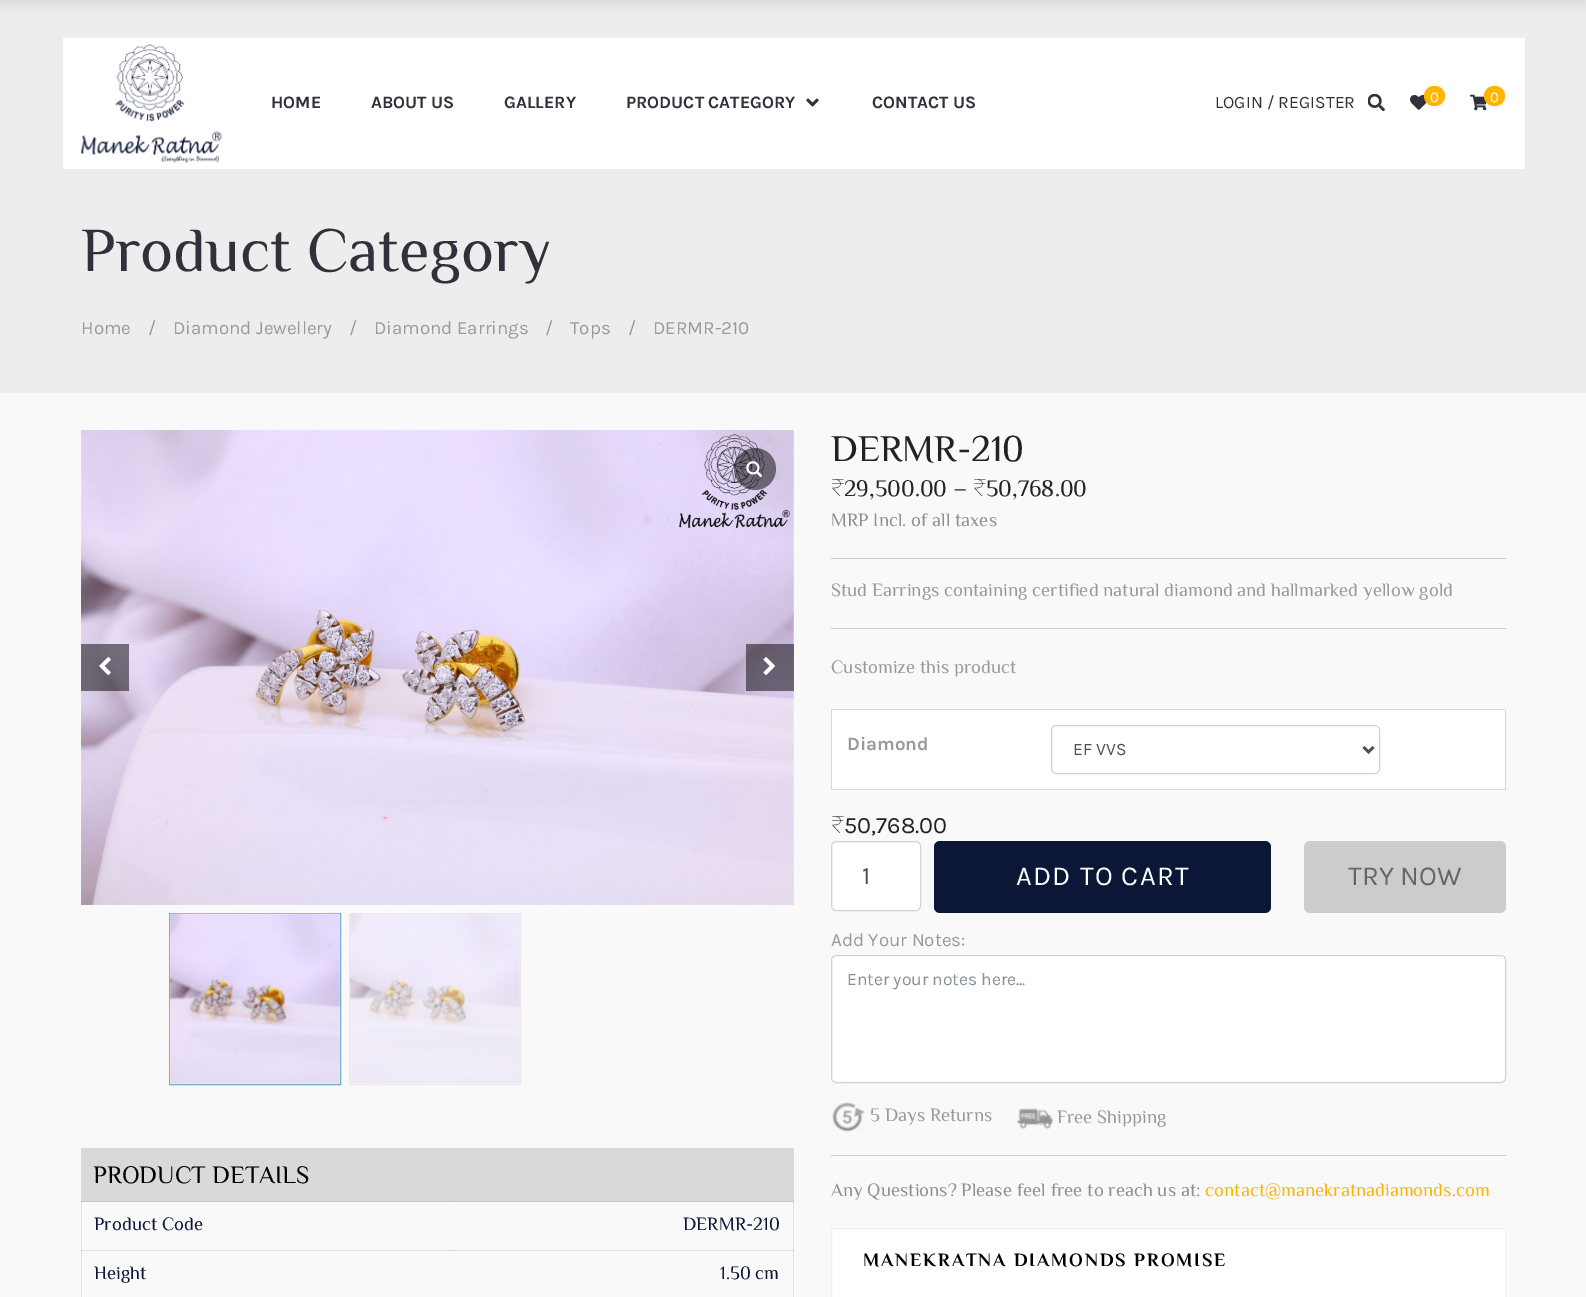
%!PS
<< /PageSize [1586 1297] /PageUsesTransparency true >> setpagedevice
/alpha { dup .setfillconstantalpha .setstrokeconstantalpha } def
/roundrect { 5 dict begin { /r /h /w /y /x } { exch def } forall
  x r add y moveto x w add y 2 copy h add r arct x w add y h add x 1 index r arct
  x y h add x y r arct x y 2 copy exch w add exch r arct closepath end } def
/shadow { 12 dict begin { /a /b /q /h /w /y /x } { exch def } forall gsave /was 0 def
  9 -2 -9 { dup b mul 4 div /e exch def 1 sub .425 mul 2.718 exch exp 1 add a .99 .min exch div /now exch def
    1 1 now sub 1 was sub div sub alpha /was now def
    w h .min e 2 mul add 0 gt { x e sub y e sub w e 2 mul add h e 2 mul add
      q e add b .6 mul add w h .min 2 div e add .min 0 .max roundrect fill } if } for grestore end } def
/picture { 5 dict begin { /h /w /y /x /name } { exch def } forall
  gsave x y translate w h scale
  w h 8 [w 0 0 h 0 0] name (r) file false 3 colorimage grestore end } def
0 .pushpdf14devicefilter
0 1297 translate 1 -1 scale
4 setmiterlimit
0.976 setgray
0 0 1586 1297 rectfill
0.878 setgray
81 1250 713 1 rectfill
0.792 setgray
454 1250 1 1 rectfill
0.878 setgray
81 1201 1 96 rectfill
0.792 setgray
81 1250 1 1 rectfill
0.878 setgray
793 1201 1 96 rectfill
0.792 setgray
793 1250 1 1 rectfill
0.929 setgray
0 0 1586 393 rectfill
0 setgray
0 -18 1586 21 0 6 0.1 shadow
1 setgray
63 38 1462 131 rectfill
(img1.rgb) 81 43 141 120 picture
/Karla-Bold [17.5 0 0 -17.5 0 0] selectfont
0.192 0.192 0.231 setrgbcolor
271 108 moveto (HOME) show
371 108 moveto (ABOUT US) show
504 108 moveto (GALLERY) show
626 108 moveto (PRODUCT CATEGORY) show
(img2.rgb) 806 98 13 9 picture
872 108 moveto (CONTACT US) show
/Karla-Regular [17.5 0 0 -17.5 0 0] selectfont
1215 108 moveto (LOGIN / REGISTER) show
(img3.rgb) 1368 94 17 17 picture
(img4.rgb) 1410 95 17 15 picture
1 0.706 0.004 setrgbcolor
1424 86 21 20 10 roundrect fill
/Karla-Regular [15 0 0 -15 0 0] selectfont
1 setgray
1430 102 moveto (0) show
(img5.rgb) 1470 94 17 17 picture
1 0.706 0.004 setrgbcolor
1484 86 21 20 10 roundrect fill
1 setgray
1490 102 moveto (0) show
/ElMessiri-Regular [62.5 0 0 -62.5 0 0] selectfont
0.192 0.192 0.231 setrgbcolor
81 271 moveto (Product Category) show
/Karla-Regular [18.75 0 0 -18.75 0 0] selectfont
0.6 setgray
81 334 moveto (Home) show
148 334 moveto (/) show
173 334 moveto (Diamond Jewellery) show
349 334 moveto (/) show
374 334 moveto (Diamond Earrings) show
545 334 moveto (/) show
570 334 moveto (Tops) show
628 334 moveto (/) show
653 334 moveto (DERMR-210) show
(img6.rgb) 81 430 713 475 picture
0.5 alpha
0 setgray
newpath 755 469 21 0 360 arc closepath fill
1 alpha
(img7.rgb) 746 461 17 17 picture
0.5 alpha
81 644 48 47 rectfill
1 alpha
(img8.rgb) 99 657 12 18 picture
0.5 alpha
746 644 48 47 rectfill
1 alpha
(img9.rgb) 763 657 12 18 picture
0.369 0.671 0.757 setrgbcolor
169.5 913.5 171 171 rectstroke
(img10.rgb) 169 913 172 172 picture
0.922 setgray
349.5 913.5 171 171 rectstroke
(img11.rgb) 349 913 172 171 picture
/ElMessiri-Regular [37.5 0 0 -37.5 0 0] selectfont
0.133 setgray
831 461 moveto (DERMR-210) show
/NotoSans-Thin [23.5 0 0 -23.5 0 0] selectfont
0.157 0.133 0.133 setrgbcolor
831 496 moveto (₹) show
/ElMessiri-Regular [23.5 0 0 -23.5 0 0] selectfont
844 496 moveto (29,500.00 –) show
/NotoSans-Thin [23.5 0 0 -23.5 0 0] selectfont
973 496 moveto (₹) show
/ElMessiri-Regular [23.5 0 0 -23.5 0 0] selectfont
986 496 moveto (50,768.00) show
/ElMessiri-Regular [18.75 0 0 -18.75 0 0] selectfont
0.553 0.561 0.569 setrgbcolor
831 526 moveto (MRP Incl. of all taxes) show
0.8 setgray
831 558 675 1 rectfill
831 628 675 1 rectfill
0.6 setgray
831 596 moveto (Stud Earrings containing certified natural diamond and hallmarked yellow gold) show
831 673 moveto (Customize this product) show
1 setgray
832 710 673 79 rectfill
0.851 setgray
831 709 675 1 rectfill
1505 709 1 81 rectfill
831 789 675 1 rectfill
831 709 1 81 rectfill
/Karla-Bold [18.75 0 0 -18.75 0 0] selectfont
0.6 setgray
847 750 moveto (Diamond) show
0.808 0.831 0.855 setrgbcolor
1051.5 725.5 328 48 4.5 roundrect stroke
0.286 0.314 0.341 setrgbcolor
2.5 setlinewidth
newpath 1363.5 747 moveto 1368.5 752 lineto 1373.5 747 lineto stroke
/Karla-Regular [17.5 0 0 -17.5 0 0] selectfont
1073 755 moveto (EF VVS) show
/NotoSans-Thin [23.5 0 0 -23.5 0 0] selectfont
0.157 0.133 0.133 setrgbcolor
831 833 moveto (₹) show
/Karla-Regular [23.5 0 0 -23.5 0 0] selectfont
844 833 moveto (50,768.00) show
1 setgray
833 843 87 67 4 roundrect fill
0.808 0.831 0.855 setrgbcolor
1 setlinewidth
831.5 841.5 89 69 4.5 roundrect stroke
/Karla-Regular [25 0 0 -25 0 0] selectfont
0.286 0.314 0.341 setrgbcolor
862 884 moveto (1) show
0.047 0.086 0.212 setrgbcolor
934 841 337 72 6 roundrect fill
/Karla-Regular [27.5 0 0 -27.5 0 0] selectfont
1 setgray
1016 885 moveto 1.25 0 (ADD TO CART) ashow
0.8 setgray
1304 841 202 72 6 roundrect fill
0.4 setgray
1348 885 moveto (TRY NOW) show
/Karla-Regular [18.75 0 0 -18.75 0 0] selectfont
0.6 setgray
831 946 moveto (Add Your Notes:) show
1 setgray
833 956 672 125 4 roundrect fill
0.808 0.831 0.855 setrgbcolor
831.5 955.5 674 127 4.5 roundrect stroke
/Karla-Regular [17.5 0 0 -17.5 0 0] selectfont
0.525 0.557 0.588 setrgbcolor
847 985 moveto (Enter your notes here...) show
0.8 setgray
831 1155 675 1 rectfill
(img12.rgb) 832 1102 33 30 picture
/ElMessiri-Regular [18.75 0 0 -18.75 0 0] selectfont
0.6 setgray
870 1121 moveto (5 Days Returns) show
(img13.rgb) 1017 1108 36 21 picture
1057 1123 moveto (Free Shipping) show
0.553 0.561 0.569 setrgbcolor
831 1196 moveto (Any Questions? Please feel free to reach us at:) show
1 0.706 0.004 setrgbcolor
1205 1196 moveto (contact@manekratnadiamonds.com) show
1 setgray
newpath 831.5 1228.5 moveto 1505.5 1228.5 lineto 1505.5 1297.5 lineto 831.5 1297.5 lineto closepath gsave fill grestore
0.941 setgray
stroke
/ElMessiri-Bold [18.75 0 0 -18.75 0 0] selectfont
0 setgray
863 1266 moveto 1.9 0 (MANEKRATNA DIAMONDS PROMISE) ashow
0.851 setgray
81 1148 713 53 rectfill
/ElMessiri-Regular [25 0 0 -25 0 0] selectfont
0 setgray
93 1183 moveto (PRODUCT DETAILS) show
0.792 setgray
81 1201 713 1 rectfill
0.714 setgray
454 1201 1 1 rectfill
81 1201 1 1 rectfill
793 1201 1 1 rectfill
/ElMessiri-Regular [18.75 0 0 -18.75 0 0] selectfont
0.047 0.086 0.212 setrgbcolor
94 1230 moveto (Product Code) show
683 1230 moveto (DERMR-210) show
94 1279 moveto (Height) show
720 1279 moveto (1.50 cm) show
.poppdf14devicefilter showpage
